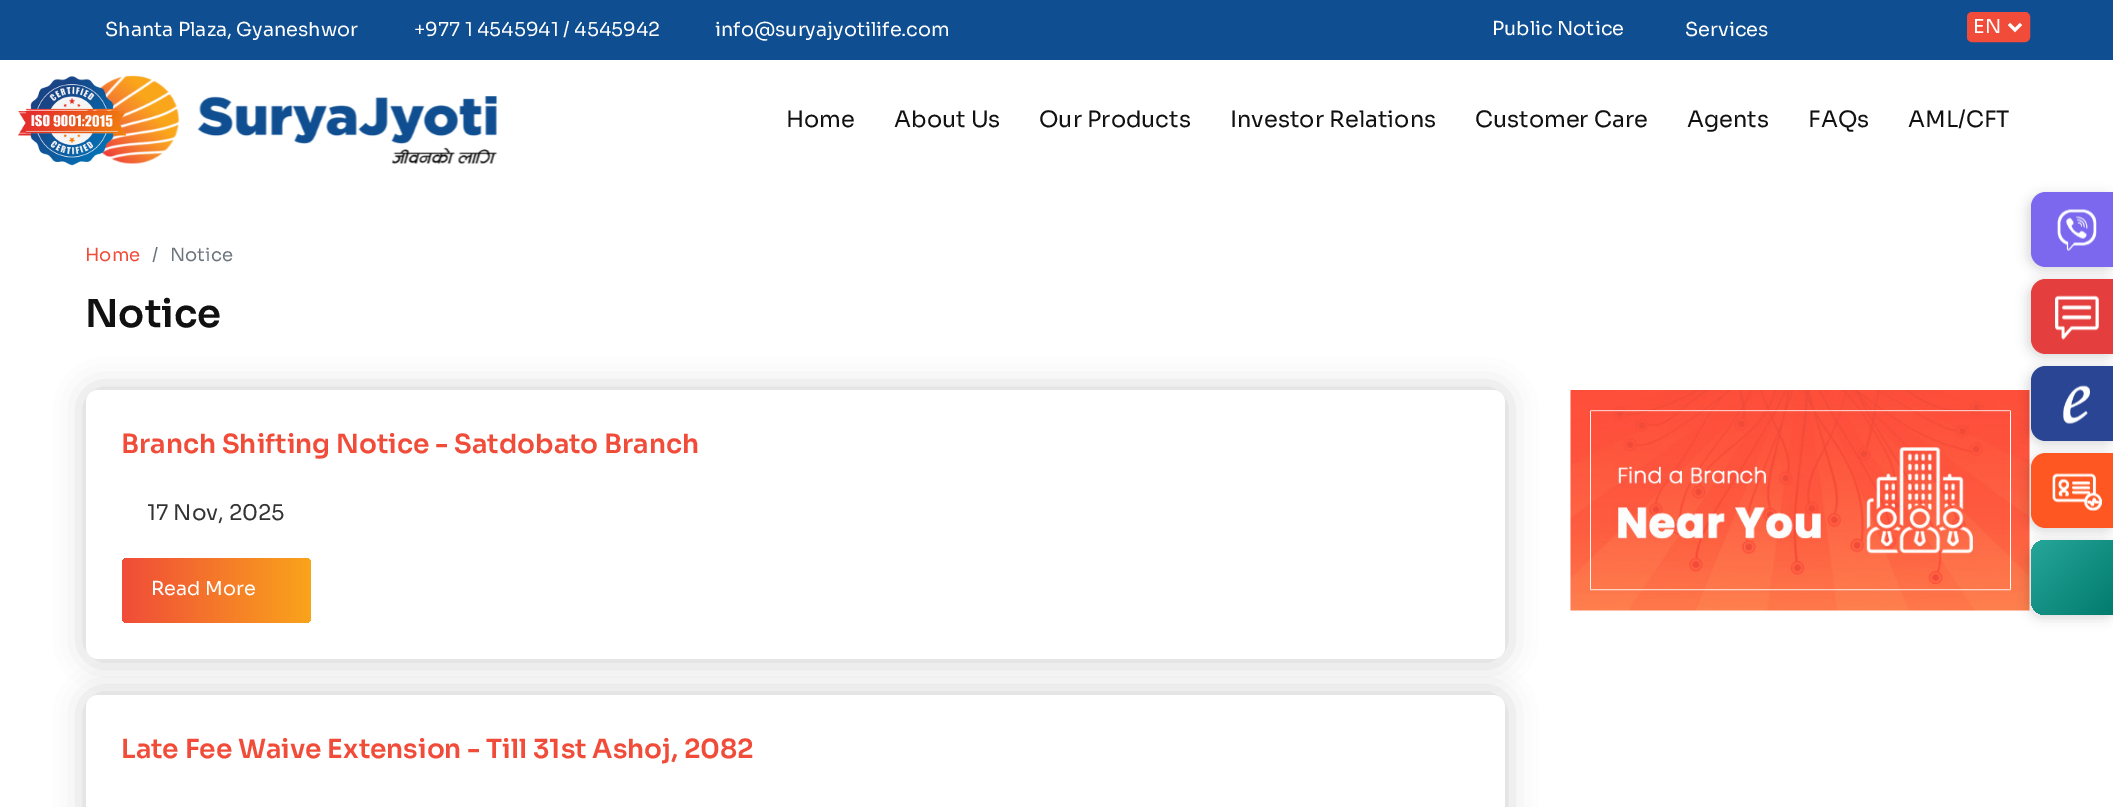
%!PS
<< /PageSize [2113 807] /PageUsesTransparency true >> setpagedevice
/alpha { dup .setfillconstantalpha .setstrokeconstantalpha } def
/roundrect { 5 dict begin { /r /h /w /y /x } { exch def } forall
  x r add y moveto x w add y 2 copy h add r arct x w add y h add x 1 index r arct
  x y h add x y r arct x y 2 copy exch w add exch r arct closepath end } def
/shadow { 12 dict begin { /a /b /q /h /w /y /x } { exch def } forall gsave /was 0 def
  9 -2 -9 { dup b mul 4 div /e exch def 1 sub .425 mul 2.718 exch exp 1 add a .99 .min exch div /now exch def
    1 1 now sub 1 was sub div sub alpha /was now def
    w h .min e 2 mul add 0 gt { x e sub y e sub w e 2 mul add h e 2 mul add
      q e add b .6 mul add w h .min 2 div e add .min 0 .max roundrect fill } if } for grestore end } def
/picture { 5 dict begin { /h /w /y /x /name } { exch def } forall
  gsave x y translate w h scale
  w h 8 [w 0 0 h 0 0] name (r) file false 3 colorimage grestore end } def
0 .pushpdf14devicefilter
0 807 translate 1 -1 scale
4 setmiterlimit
1 setgray
0 0 2113 807 rectfill
0.055 0.306 0.569 setrgbcolor
0 0 2113 60 rectfill
/Sora-Regular [19.25 0 0 -19.25 0 0] selectfont
1 setgray
105 36 moveto (Shanta Plaza, Gyaneshwor) show
414 36 moveto (+977 1 4545941 / 4545942) show
715 36 moveto (info@suryajyotilife.com) show
1492 35 moveto (Public Notice) show
1685 36 moveto (Services) show
0.941 0.298 0.224 setrgbcolor
1968 13 61 28 4 roundrect gsave fill grestore
2 setlinewidth
stroke
1 setgray
3 setlinewidth
newpath 2009 24 moveto 2015 30 lineto 2021 24 lineto stroke
1973 33 moveto (EN) show
(img2.rgb) 86 75 412 89 picture
(img1.rgb) 18 76 109 90 picture
/Sora-Regular [22.5 0 0 -22.5 0 0] selectfont
0.067 setgray
786 127 moveto (Home) show
894 127 moveto (About Us) show
1039 127 moveto (Our Products) show
1230 127 moveto (Investor Relations) show
1475 127 moveto (Customer Care) show
1687 127 moveto (Agents) show
1808 127 moveto (FAQs) show
1908 127 moveto (AML/CFT) show
/Sora-Regular [18 0 0 -18 0 0] selectfont
0.941 0.298 0.224 setrgbcolor
85 261 moveto (Home) show
0.424 0.459 0.49 setrgbcolor
152 261 moveto (/) show
170 261 moveto (Notice) show
/Sora-SemiBold [38.5 0 0 -38.5 0 0] selectfont
0.067 setgray
85 327 moveto (Notice) show
0 setgray
2028 195 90 75 15 6 0.15 shadow
0.482 0.408 0.933 setrgbcolor
newpath 2046 192 moveto 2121 192 lineto 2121 267 lineto 2046 267 lineto 2037.5 267 2031 260.5 2031 252 curveto 2031 207 lineto 2031 198.5 2037.5 192 2046 192 curveto closepath fill
(img3.rgb) 2057 209 40 42 picture
0 setgray
2028 282 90 75 15 6 0.15 shadow
0.898 0.243 0.243 setrgbcolor
newpath 2046 279 moveto 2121 279 lineto 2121 354 lineto 2046 354 lineto 2037.5 354 2031 347.5 2031 339 curveto 2031 294 lineto 2031 285.5 2037.5 279 2046 279 curveto closepath fill
(img4.rgb) 2055 295 44 45 picture
(img7.rgb) 1570 390 460 221 picture
0 setgray
2028 369 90 75 15 6 0.15 shadow
0.161 0.271 0.576 setrgbcolor
newpath 2046 366 moveto 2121 366 lineto 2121 441 lineto 2046 441 lineto 2037.5 441 2031 434.5 2031 426 curveto 2031 381 lineto 2031 372.5 2037.5 366 2046 366 curveto closepath fill
(img5.rgb) 2063 385 27 39 picture
0 setgray
2028 456 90 75 15 6 0.15 shadow
1 0.341 0.133 setrgbcolor
newpath 2046 453 moveto 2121 453 lineto 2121 528 lineto 2046 528 lineto 2037.5 528 2031 521.5 2031 513 curveto 2031 468 lineto 2031 459.5 2037.5 453 2046 453 curveto closepath fill
(img6.rgb) 2052 473 50 38 picture
0 setgray
2028 543 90 75 15 6 0.15 shadow
gsave newpath 2046 540 moveto 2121 540 lineto 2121 615 lineto 2046 615 lineto 2037.5 615 2031 608.5 2031 600 curveto 2031 555 lineto 2031 546.5 2037.5 540 2046 540 curveto closepath clip newpath
<< /ShadingType 2 /ColorSpace /DeviceRGB /Coords [2035 536 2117 619] /Extend [true true] /Function << /FunctionType 2 /Domain [0 1] /C0 [0.149 0.651 0.604] /C1 [0 0.475 0.42] /N 1 >> >> shfill grestore
86 390 1419 269 12 15 0.2 shadow
1 setgray
86 390 1419 269 12 roundrect fill
/Sora-SemiBold [26.4 0 0 -26.4 0 0] selectfont
0.941 0.298 0.224 setrgbcolor
121 453 moveto (Branch Shifting Notice - Satdobato Branch) show
/Sora-Regular [21.5 0 0 -21.5 0 0] selectfont
0.2 setgray
147 520 moveto (17 Nov, 2025) show
gsave 122 558 189 65 6 roundrect clip newpath
<< /ShadingType 2 /ColorSpace /DeviceRGB /Coords [122 590 311 590] /Extend [true true] /Function << /FunctionType 2 /Domain [0 1] /C0 [0.941 0.298 0.224] /C1 [0.98 0.643 0.106] /N 1 >> >> shfill grestore
/Sora-Regular [19.25 0 0 -19.25 0 0] selectfont
1 setgray
151 595 moveto (Read More) show
0 setgray
86 695 1419 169 12 15 0.2 shadow
1 setgray
86 695 1419 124 12 roundrect fill
/Sora-SemiBold [26.4 0 0 -26.4 0 0] selectfont
0.941 0.298 0.224 setrgbcolor
121 758 moveto (Late Fee Waive Extension - Till 31st Ashoj, 2082) show
.poppdf14devicefilter showpage
